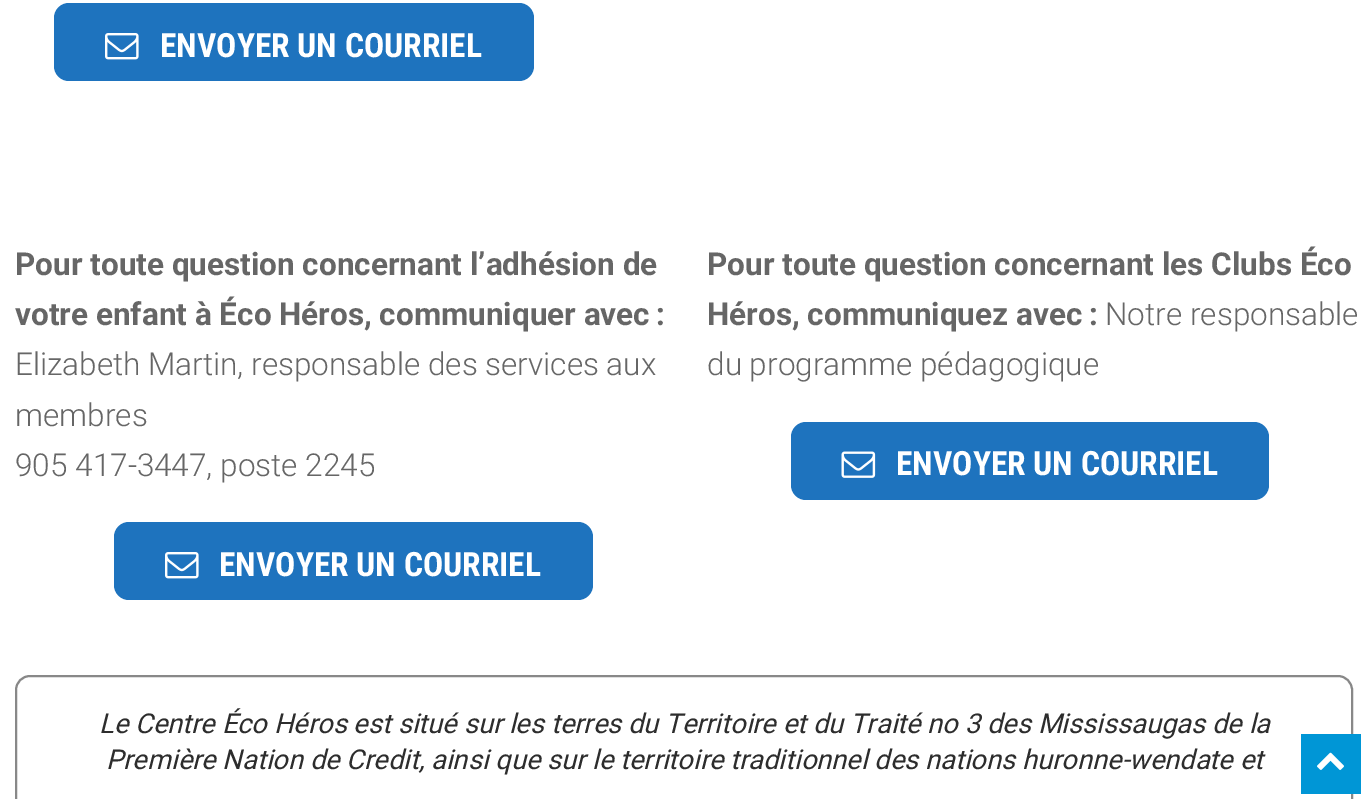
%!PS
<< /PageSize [1367 799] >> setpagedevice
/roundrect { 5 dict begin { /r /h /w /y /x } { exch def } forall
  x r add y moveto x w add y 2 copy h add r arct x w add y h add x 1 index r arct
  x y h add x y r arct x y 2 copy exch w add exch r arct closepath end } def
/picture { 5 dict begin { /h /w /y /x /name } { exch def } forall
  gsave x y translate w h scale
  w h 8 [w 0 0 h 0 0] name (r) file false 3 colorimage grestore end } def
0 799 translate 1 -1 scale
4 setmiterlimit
1 setgray
0 0 1367 799 rectfill
0.118 0.451 0.745 setrgbcolor
54 3 480 78 15 roundrect fill
(img1.rgb) 105 33 34 27 picture
/RobotoCondensed-Bold [33.5 0 0 -33.5 0 0] selectfont
1 setgray
160 57 moveto (ENVOYER UN COURRIEL) show
/Roboto-Bold [31.5 0 0 -31.5 0 0] selectfont
0.4 setgray
15 275 moveto (Pour toute question concernant l’adhésion de) show
15 325 moveto (votre enfant à Éco Héros, communiquer avec :) show
/Roboto-Light [31.5 0 0 -31.5 0 0] selectfont
15 375 moveto (Elizabeth Martin, responsable des services aux) show
15 426 moveto (membres) show
15 476 moveto (905 417-3447, poste 2245) show
0.118 0.451 0.745 setrgbcolor
114 522 479 78 15 roundrect fill
(img1.rgb) 165 552 34 27 picture
/RobotoCondensed-Bold [33.5 0 0 -33.5 0 0] selectfont
1 setgray
219 576 moveto (ENVOYER UN COURRIEL) show
/Roboto-Bold [31.5 0 0 -31.5 0 0] selectfont
0.4 setgray
707 275 moveto (Pour toute question concernant les Clubs Éco) show
707 325 moveto (Héros, communiquez avec :) show
/Roboto-Light [31.5 0 0 -31.5 0 0] selectfont
1105 325 moveto (Notre responsable) show
707 375 moveto (du programme pédagogique) show
0.118 0.451 0.745 setrgbcolor
791 422 478 78 15 roundrect fill
(img2.rgb) 841 451 35 27 picture
/RobotoCondensed-Bold [33.5 0 0 -33.5 0 0] selectfont
1 setgray
896 475 moveto (ENVOYER UN COURRIEL) show
0.533 setgray
2 setlinewidth
16 676 1336 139 14 roundrect stroke
/Roboto-Italic [27.3 0 0 -27.3 0 0] selectfont
0.176 setgray
99 733 moveto (Le Centre Éco Héros est situé sur les terres du Territoire et du Traité no 3 des Mississaugas de la) show
106 769 moveto (Première Nation de Credit, ainsi que sur le territoire traditionnel des nations huronne-wendate et) show
0 0.588 0.839 setrgbcolor
1301 734 60 60 rectfill
(img3.rgb) 1317 752 27 18 picture
showpage
